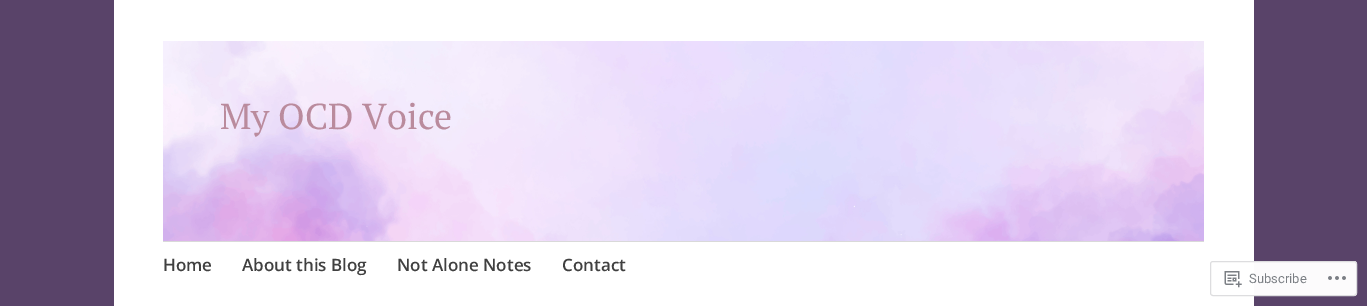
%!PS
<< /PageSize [1367 306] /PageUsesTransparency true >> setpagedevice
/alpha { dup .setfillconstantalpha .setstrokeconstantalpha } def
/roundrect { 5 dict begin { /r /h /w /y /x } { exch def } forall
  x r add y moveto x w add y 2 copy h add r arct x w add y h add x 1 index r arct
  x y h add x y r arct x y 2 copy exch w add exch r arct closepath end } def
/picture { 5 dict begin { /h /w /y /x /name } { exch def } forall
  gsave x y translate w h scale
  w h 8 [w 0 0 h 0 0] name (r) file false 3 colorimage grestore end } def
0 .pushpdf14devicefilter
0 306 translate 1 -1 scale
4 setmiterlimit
0.349 0.263 0.412 setrgbcolor
0 0 1367 306 rectfill
1 setgray
114 0 1140 306 rectfill
(img1.rgb) 163 41 1041 200 picture
/PTSerif-Regular [36 0 0 -36 0 0] selectfont
0.729 0.545 0.616 setrgbcolor
220 129 moveto (My OCD Voice) show
0.851 setgray
163 241 1041 1 rectfill
/OpenSans-SemiBold [17 0 0 -17 0 0] selectfont
0.251 setgray
163 271 moveto (Home) show
242 271 moveto (About this Blog) show
397 271 moveto (Not Alone Notes) show
562 271 moveto (Contact) show
0.98 alpha
1 setgray
1210 261 147 35 3 roundrect fill
0.863 0.863 0.871 setrgbcolor
1210.5 261.5 146 34 2.5 roundrect stroke
1 alpha
(img2.rgb) 1224 271 18 17 picture
/Roboto-Regular [13 0 0 -13 0 0] selectfont
0.482 0.498 0.518 setrgbcolor
1249 283 moveto (Subscribe) show
(img3.rgb) 1328 276 18 4 picture
.poppdf14devicefilter showpage
